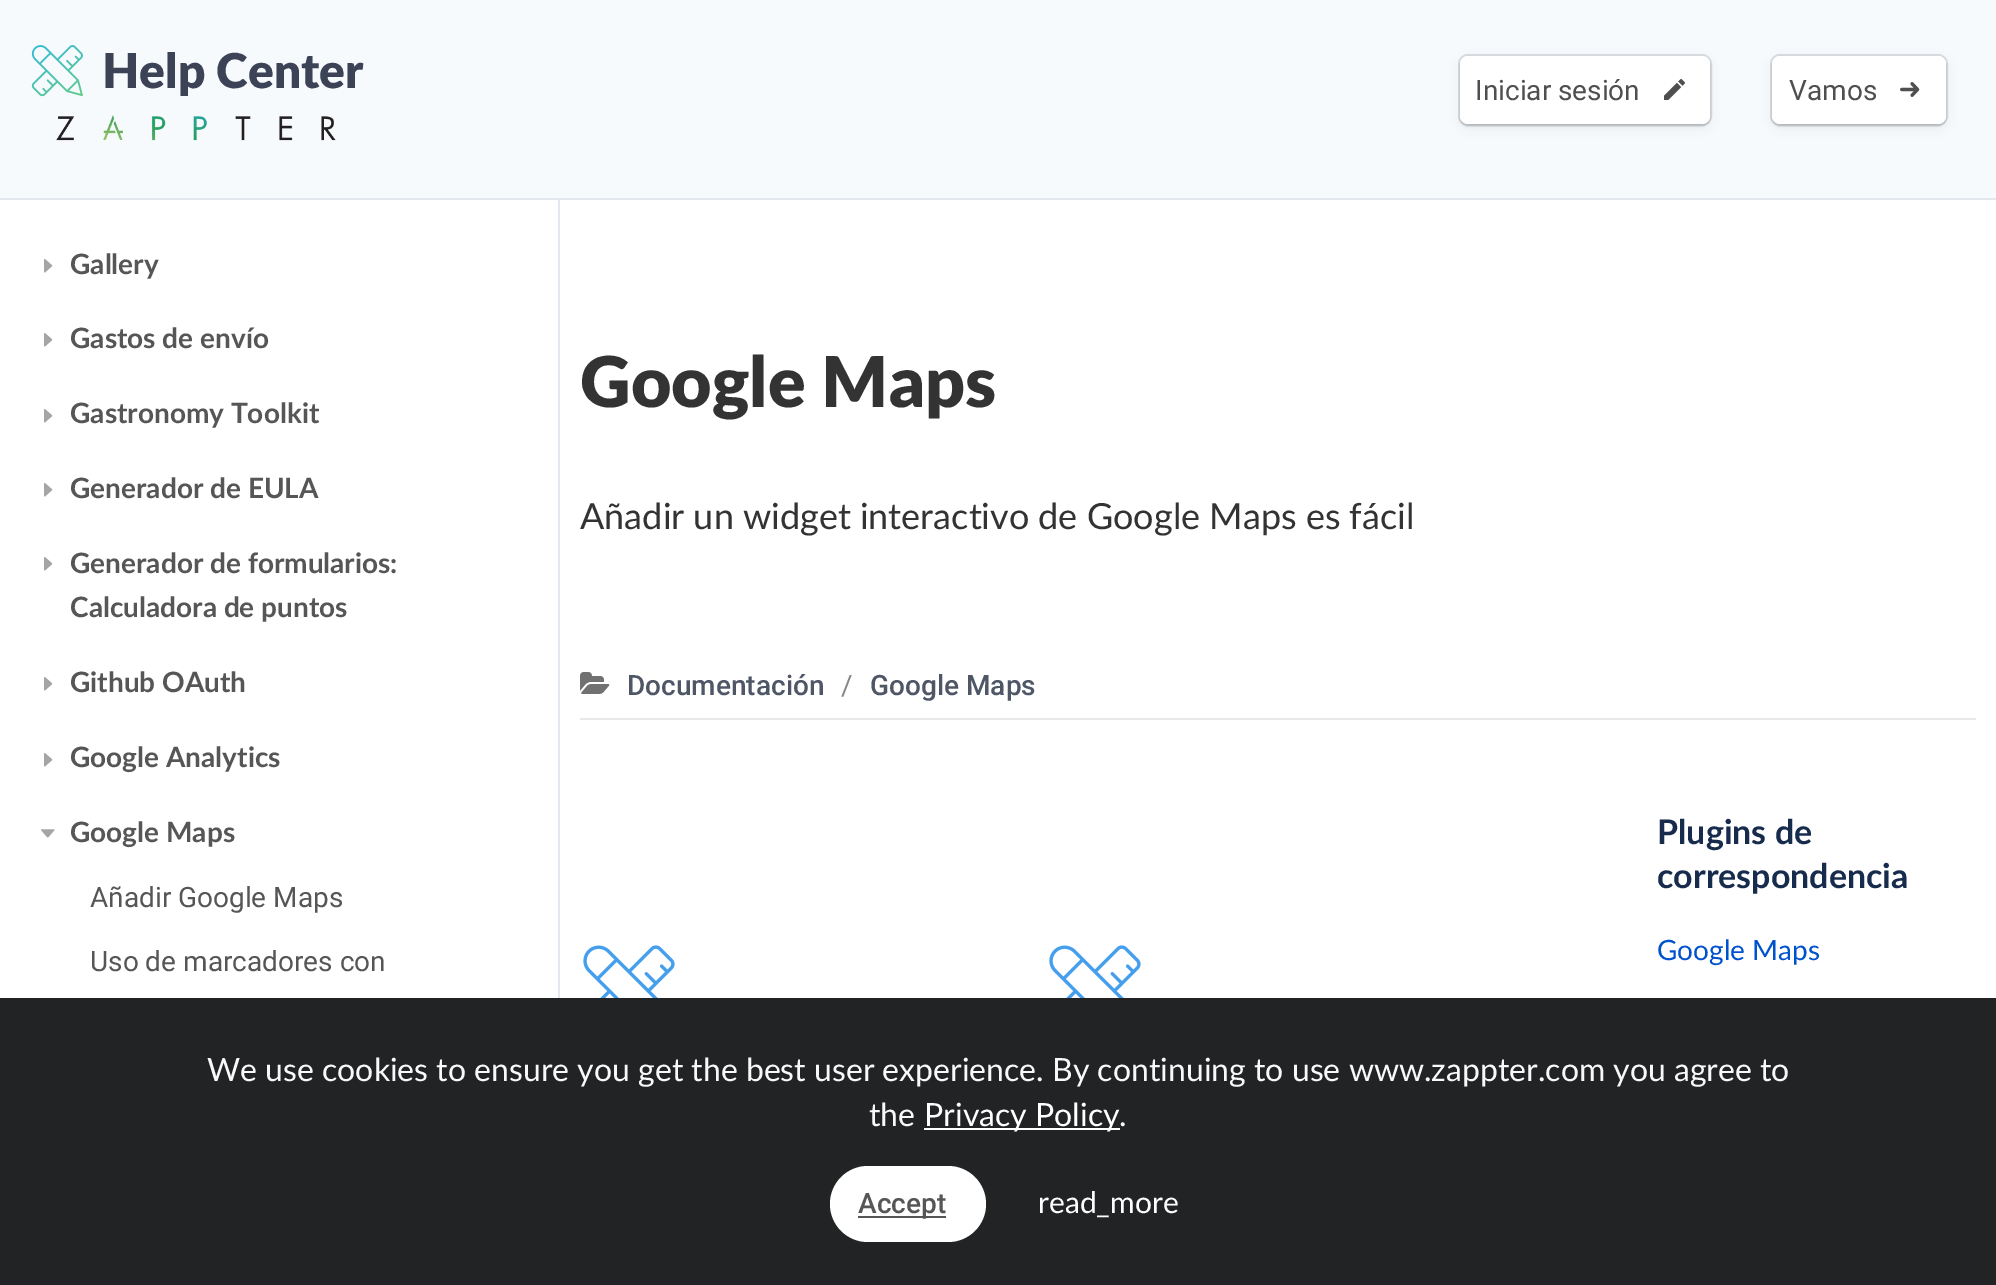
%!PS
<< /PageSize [1996 1285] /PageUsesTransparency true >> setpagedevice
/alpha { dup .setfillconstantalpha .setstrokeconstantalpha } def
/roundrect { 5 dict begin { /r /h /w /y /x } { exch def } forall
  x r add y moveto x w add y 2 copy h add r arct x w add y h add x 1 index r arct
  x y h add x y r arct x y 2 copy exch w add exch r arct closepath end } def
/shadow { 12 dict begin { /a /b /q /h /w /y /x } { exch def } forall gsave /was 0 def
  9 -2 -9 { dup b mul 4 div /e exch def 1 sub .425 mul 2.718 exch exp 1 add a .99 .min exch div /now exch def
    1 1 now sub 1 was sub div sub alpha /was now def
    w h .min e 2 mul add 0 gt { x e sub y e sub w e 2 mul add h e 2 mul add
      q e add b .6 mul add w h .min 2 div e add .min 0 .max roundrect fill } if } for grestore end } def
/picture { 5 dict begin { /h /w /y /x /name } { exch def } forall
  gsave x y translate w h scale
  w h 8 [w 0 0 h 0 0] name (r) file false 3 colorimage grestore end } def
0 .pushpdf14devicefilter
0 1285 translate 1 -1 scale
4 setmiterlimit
1 setgray
0 0 1996 1285 rectfill
0.969 0.98 0.988 setrgbcolor
0 0 1996 198 rectfill
0.89 0.91 0.933 setrgbcolor
0 198 1996 2 rectfill
(img1.rgb) 31 45 52 52 picture
/Lato-Black [48 0 0 -48 0 0] selectfont
0.235 0.263 0.337 setrgbcolor
102 88 moveto (Help Center) show
(img2.rgb) 56 115 280 26 picture
0.235 0.259 0.341 setrgbcolor
1460 60 250 68 8 5 0.08 shadow
0.16 alpha
2 setlinewidth
1459 55 252 70 9 roundrect stroke
1 alpha
0 setgray
1460 58 250 68 8 1 0.12 shadow
1 setgray
1460 56 250 68 8 roundrect fill
/Roboto-Regular [28 0 0 -28 0 0] selectfont
0.31 setgray
1475 100 moveto (Iniciar sesión) show
(img3.rgb) 1664 79 21 21 picture
0.235 0.259 0.341 setrgbcolor
1772 60 174 68 8 5 0.08 shadow
0.16 alpha
1771 55 176 70 9 roundrect stroke
1 alpha
0 setgray
1772 58 174 68 8 1 0.12 shadow
1 setgray
1772 56 174 68 8 roundrect fill
0.31 setgray
1789 100 moveto (Vamos) show
(img4.rgb) 1900 82 20 15 picture
0.89 0.91 0.933 setrgbcolor
558 200 2 798 rectfill
(img5.rgb) 44 259 9 14 picture
/Lato-Bold [28 0 0 -28 0 0] selectfont
0.337 setgray
70 274 moveto (Gallery) show
(img5.rgb) 44 333 9 14 picture
70 348 moveto (Gastos de envío) show
(img5.rgb) 44 409 9 14 picture
70 423 moveto (Gastronomy Toolkit) show
(img5.rgb) 44 483 9 14 picture
70 498 moveto (Generador de EULA) show
(img5.rgb) 44 557 9 14 picture
70 573 moveto (Generador de formularios:) show
70 617 moveto (Calculadora de puntos) show
(img5.rgb) 44 677 9 14 picture
70 692 moveto (Github OAuth) show
(img5.rgb) 44 753 9 14 picture
70 767 moveto (Google Analytics) show
(img6.rgb) 41 829 14 9 picture
70 842 moveto (Google Maps) show
/Roboto-Regular [28 0 0 -28 0 0] selectfont
90 907 moveto (Añadir Google Maps) show
90 971 moveto (Uso de marcadores con) show
/Lato-Black [70 0 0 -70 0 0] selectfont
0.2 setgray
580 407 moveto (Google Maps) show
/Lato-Regular [36 0 0 -36 0 0] selectfont
580 529 moveto (Añadir un widget interactivo de Google Maps es fácil) show
0.91 setgray
580 718 1396 2 rectfill
(img7.rgb) 580 672 30 22 picture
/Roboto-Medium [28 0 0 -28 0 0] selectfont
0.31 0.337 0.4 setrgbcolor
627 695 moveto (Documentación) show
/Roboto-Regular [28 0 0 -28 0 0] selectfont
0.533 setgray
841 695 moveto (/) show
/Roboto-Medium [28 0 0 -28 0 0] selectfont
0.31 0.337 0.4 setrgbcolor
870 695 moveto (Google Maps) show
/Lato-Bold [34 0 0 -34 0 0] selectfont
0.09 0.169 0.302 setrgbcolor
1657 844 moveto (Plugins de) show
1657 888 moveto (correspondencia) show
/Lato-Regular [28 0 0 -28 0 0] selectfont
0 0.322 0.8 setrgbcolor
1657 960 moveto (Google Maps) show
(img8.rgb) 583 945 92 53 picture
(img8.rgb) 1049 945 92 53 picture
0.129 0.137 0.145 setrgbcolor
0 998 1996 287 rectfill
/Lato-Regular [32 0 0 -32 0 0] selectfont
0.976 setgray
207 1081 moveto (We use cookies to ensure you get the best user experience. By continuing to use www.zappter.com you agree to) show
869 1126 moveto (the) show
1 setgray
924 1128 196 2 rectfill
924 1126 moveto (Privacy Policy) show
0.976 setgray
1119 1126 moveto (.) show
1 setgray
830 1166 156 76 38 roundrect fill
0.333 setgray
858 1216 88 2 rectfill
/Roboto-Medium [28 0 0 -28 0 0] selectfont
0.337 setgray
858 1213 moveto (Accept) show
/Lato-Regular [30 0 0 -30 0 0] selectfont
1 setgray
1038 1213 moveto (read_more) show
.poppdf14devicefilter showpage
